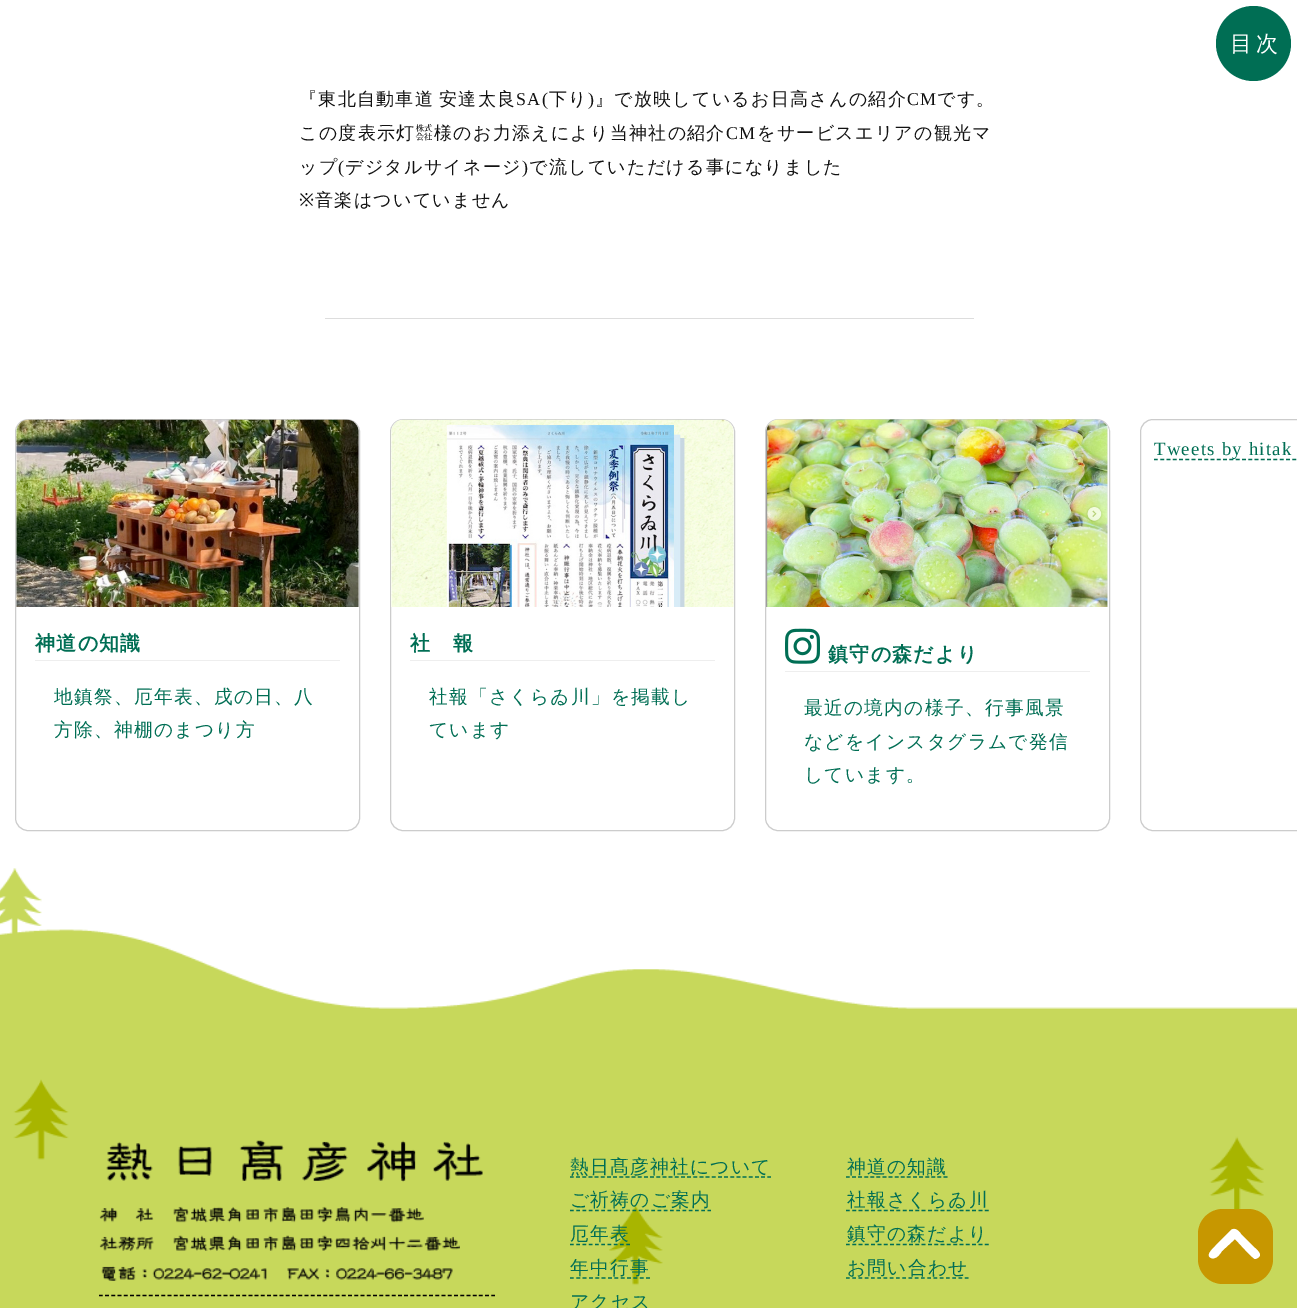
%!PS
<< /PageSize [1297 1308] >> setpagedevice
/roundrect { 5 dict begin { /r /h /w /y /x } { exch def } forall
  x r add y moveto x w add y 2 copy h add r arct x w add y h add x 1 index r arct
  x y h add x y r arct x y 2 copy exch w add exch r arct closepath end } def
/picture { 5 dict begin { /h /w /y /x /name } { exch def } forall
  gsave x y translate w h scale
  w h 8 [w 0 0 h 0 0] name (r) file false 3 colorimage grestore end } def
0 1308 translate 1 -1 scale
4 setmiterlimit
1 setgray
0 0 1297 1308 rectfill
0 0.431 0.329 setrgbcolor
newpath 1253.5 43.5 37.5 0 360 arc closepath fill
/WenQuanYiZenHei-Medium [22 0 0 -22 0 0] selectfont
1 setgray
1230 51 moveto 4 0 (目次) ashow
/WenQuanYiZenHei-Medium [18 0 0 -18 0 0] selectfont
0.071 setgray
299 105 moveto 1.25 0 (『東北自動車道) ashow
439 105 moveto 1.25 0 (安達太良) ashow
/LiberationSerif-Regular [18 0 0 -18 0 0] selectfont
516 105 moveto 1.25 0 (SA\() ashow
/WenQuanYiZenHei-Medium [18 0 0 -18 0 0] selectfont
549 105 moveto 1.25 0 (下り) ashow
/LiberationSerif-Regular [18 0 0 -18 0 0] selectfont
588 105 moveto 1.25 0 (\)) ashow
/WenQuanYiZenHei-Medium [18 0 0 -18 0 0] selectfont
595 105 moveto 1.25 0 (』で放映しているお日高さんの紹介) ashow
/LiberationSerif-Regular [18 0 0 -18 0 0] selectfont
907 105 moveto 1.25 0 (CM) ashow
/WenQuanYiZenHei-Medium [18 0 0 -18 0 0] selectfont
937 105 moveto 1.25 0 (です。) ashow
299 139 moveto 1.25 0 (この度表示灯) ashow
/KaiseiDecol-Regular [18 0 0 -18 0 0] selectfont
415 139 moveto 1.25 0 (㍿) ashow
/WenQuanYiZenHei-Medium [18 0 0 -18 0 0] selectfont
434 139 moveto 1.25 0 (様のお力添えにより当神社の紹介) ashow
/LiberationSerif-Regular [18 0 0 -18 0 0] selectfont
726 139 moveto 1.25 0 (CM) ashow
/WenQuanYiZenHei-Medium [18 0 0 -18 0 0] selectfont
757 139 moveto 1.25 0 (をサービスエリアの観光マ) ashow
299 173 moveto 1.25 0 (ップ) ashow
/LiberationSerif-Regular [18 0 0 -18 0 0] selectfont
338 173 moveto 1.25 0 (\() ashow
/WenQuanYiZenHei-Medium [18 0 0 -18 0 0] selectfont
345 173 moveto 1.25 0 (デジタルサイネージ) ashow
/LiberationSerif-Regular [18 0 0 -18 0 0] selectfont
522 173 moveto 1.25 0 (\)) ashow
/WenQuanYiZenHei-Medium [18 0 0 -18 0 0] selectfont
529 173 moveto 1.25 0 (で流していただける事になりました) ashow
/NotoSans-Regular [18 0 0 -18 0 0] selectfont
299 206 moveto 1.25 0 (※) ashow
/WenQuanYiZenHei-Medium [18 0 0 -18 0 0] selectfont
315 206 moveto 1.25 0 (音楽はついていません) ashow
0.867 setgray
325 318 649 1 rectfill
0.8 setgray
1140.5 419.5 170 411 12.5 roundrect stroke
0 0.431 0.329 setrgbcolor
1.2 setlinewidth
[3.75 2.54] 0 setdash
newpath 1154 459.5 moveto 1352.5 459.5 lineto stroke
/LiberationSerif-Regular [18.75 0 0 -18.75 0 0] selectfont
1154 455 moveto 1.25 0 (Tweets by hitak) ashow
0.8 setgray
1 setlinewidth
[] 0 setdash
15.5 419.5 344 411 12.5 roundrect stroke
(img1.rgb) 16 419 343 188 picture
0.933 setgray
35 660 305 1 rectfill
/WenQuanYiZenHei-Bold [20 0 0 -20 0 0] selectfont
0 0.431 0.329 setrgbcolor
35 650 moveto 1.25 0 (神道の知識) ashow
/WenQuanYiZenHei-Medium [18.75 0 0 -18.75 0 0] selectfont
54 703 moveto 1.25 0 (地鎮祭、厄年表、戌の日、八) ashow
54 736 moveto 1.25 0 (方除、神棚のまつり方) ashow
0.8 setgray
390.5 419.5 344 411 12.5 roundrect stroke
(img2.rgb) 391 419 343 188 picture
0.933 setgray
410 660 305 1 rectfill
/WenQuanYiZenHei-Bold [20 0 0 -20 0 0] selectfont
0 0.431 0.329 setrgbcolor
410 650 moveto 1.25 0 (社　報) ashow
/WenQuanYiZenHei-Medium [18.75 0 0 -18.75 0 0] selectfont
429 703 moveto 1.25 0 (社報「さくらゐ川」を掲載し) ashow
429 736 moveto 1.25 0 (ています) ashow
0.8 setgray
765.5 419.5 344 411 12.5 roundrect stroke
(img3.rgb) 766 419 343 188 picture
0.933 setgray
785 671 305 1 rectfill
(img4.rgb) 785 628 35 36 picture
/WenQuanYiZenHei-Bold [20 0 0 -20 0 0] selectfont
0 0.431 0.329 setrgbcolor
828 661 moveto 1.25 0 (鎮守の森だより) ashow
/WenQuanYiZenHei-Medium [18.75 0 0 -18.75 0 0] selectfont
804 714 moveto 1.25 0 (最近の境内の様子、行事風景) ashow
804 748 moveto 1.25 0 (などをインスタグラムで発信) ashow
804 781 moveto 1.25 0 (しています。) ashow
(img5.rgb) 0 868 1297 440 picture
(img6.rgb) 106 1140 377 42 picture
(img7.rgb) 99 1206 361 75 picture
0 setgray
1.2 setlinewidth
[3.75 2.48] 0 setdash
newpath 99 1295.5 moveto 495 1295.5 lineto stroke
0 0.431 0.329 setrgbcolor
[3.75 2.42] 0 setdash
newpath 570 1177 moveto 771 1177 lineto stroke
570 1173 moveto 1.25 0 (熱日髙彦神社について) ashow
570 1206 moveto 1.25 0 (ご祈祷のご案内) ashow
[3.75 2.5] 0 setdash
newpath 570 1210.5 moveto 711 1210.5 lineto stroke
570 1240 moveto 1.25 0 (厄年表) ashow
newpath 570 1244.5 moveto 630 1244.5 lineto stroke
570 1274 moveto 1.25 0 (年中行事) ashow
[3.75 2.6] 0 setdash
newpath 570 1278 moveto 650 1278 lineto stroke
570 1308 moveto 1.25 0 (アクセス) ashow
847 1173 moveto 1.25 0 (神道の知識) ashow
[3.75 2.35] 0 setdash
newpath 846 1177 moveto 947.5 1177 lineto stroke
[3.75 2.56] 0 setdash
newpath 846 1210.5 moveto 989 1210.5 lineto stroke
847 1206 moveto 1.25 0 (社報さくらゐ川) ashow
847 1240 moveto 1.25 0 (鎮守の森だより) ashow
newpath 846 1244.5 moveto 989 1244.5 lineto stroke
847 1274 moveto 1.25 0 (お問い合わせ) ashow
[3.75 2.5] 0 setdash
newpath 846 1278 moveto 969 1278 lineto stroke
0.78 0.592 0 setrgbcolor
1198 1209 75 75 25 roundrect fill
1 setgray
newpath 1231 1230 moveto 1235 1227 1239 1231 1241 1234 curveto 1255 1248 lineto 1257 1250 1262 1254 1259 1257 curveto 1258 1258 1256 1259 1255 1259 curveto 1252 1258 1238 1242 1235 1239 curveto 1222 1251 lineto 1220 1254 1216 1260 1211 1258 curveto 1204 1255 1216 1246 1217 1244 curveto closepath fill
showpage
